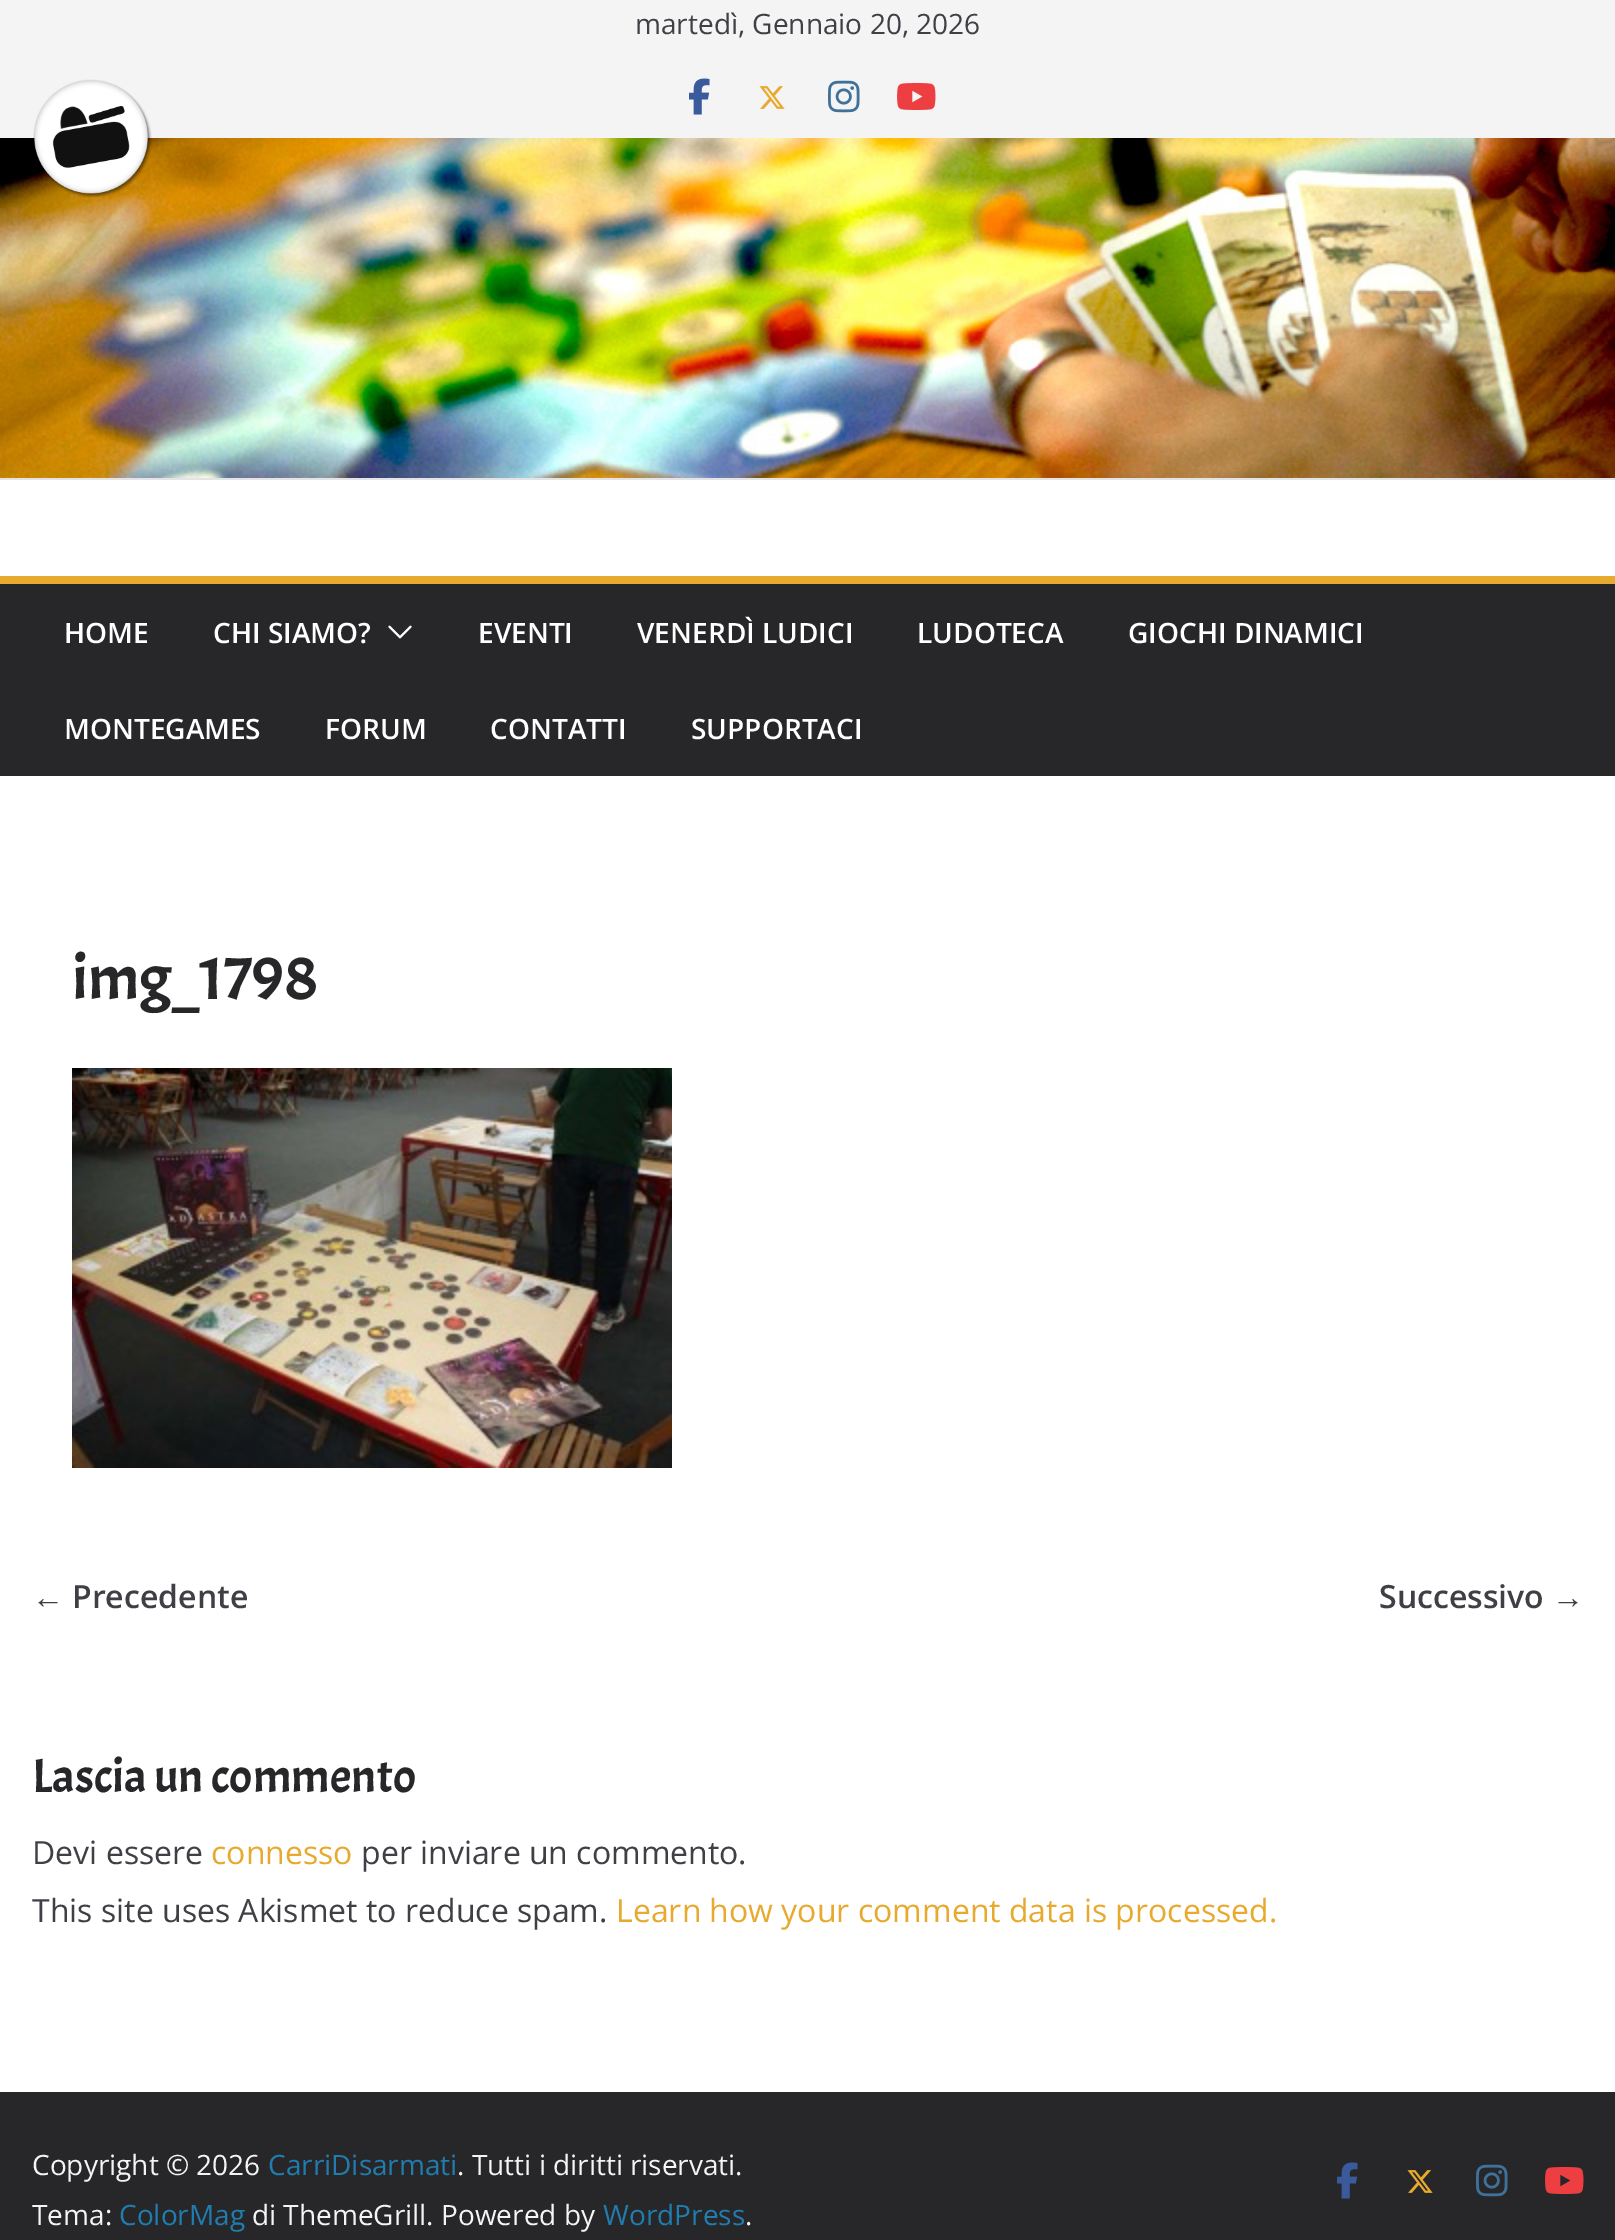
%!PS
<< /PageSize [1615 2240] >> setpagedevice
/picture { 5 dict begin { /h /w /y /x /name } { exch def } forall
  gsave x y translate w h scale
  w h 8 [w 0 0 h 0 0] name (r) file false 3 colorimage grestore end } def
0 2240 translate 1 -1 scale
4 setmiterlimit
1 setgray
0 0 1615 2240 rectfill
0.957 0.957 0.961 setrgbcolor
0 0 1615 138 rectfill
/OpenSans-Regular [28 0 0 -28 0 0] selectfont
0.247 0.247 0.275 setrgbcolor
635 34 moveto (martedì, Gennaio 20, 2026) show
(img1.rgb) 689 78 21 37 picture
(img2.rgb) 759 86 26 23 picture
(img3.rgb) 828 80 32 33 picture
(img4.rgb) 897 83 39 27 picture
(img6.rgb) 0 138 1615 340 picture
(img5.rgb) 33 79 119 119 picture
0.894 0.894 0.906 setrgbcolor
0 478 1615 2 rectfill
0.153 0.153 0.165 setrgbcolor
0 584 1615 192 rectfill
0.91 0.667 0.18 setrgbcolor
0 576 1615 8 rectfill
/OpenSans-SemiBold [28 0 0 -28 0 0] selectfont
1 setgray
64 643 moveto (HOME) show
213 643 moveto (CHI SIAMO?) show
(img7.rgb) 388 625 24 14 picture
478 643 moveto (EVENTI) show
637 643 moveto (VENERDÌ LUDICI) show
917 643 moveto (LUDOTECA) show
1128 643 moveto (GIOCHI DINAMICI) show
64 739 moveto (MONTEGAMES) show
325 739 moveto (FORUM) show
490 739 moveto (CONTATTI) show
691 739 moveto (SUPPORTACI) show
/Acme-Regular [64 0 0 -64 0 0] selectfont
0.153 0.153 0.165 setrgbcolor
72 999 moveto (img_1798) show
(img8.rgb) 72 1068 600 400 picture
/LiberationSerif-Bold [32 0 0 -32 0 0] selectfont
0.247 0.247 0.275 setrgbcolor
32 1608 moveto (←) show
/OpenSans-SemiBold [32 0 0 -32 0 0] selectfont
72 1608 moveto (Precedente) show
1379 1608 moveto (Successivo) show
/LiberationSerif-Bold [32 0 0 -32 0 0] selectfont
1552 1608 moveto (→) show
/Acme-Regular [48 0 0 -48 0 0] selectfont
0.153 0.153 0.165 setrgbcolor
32 1792 moveto (Lascia un commento) show
/OpenSans-Regular [32 0 0 -32 0 0] selectfont
0.247 0.247 0.275 setrgbcolor
32 1864 moveto (Devi essere) show
0.91 0.667 0.18 setrgbcolor
211 1864 moveto (connesso) show
0.247 0.247 0.275 setrgbcolor
361 1864 moveto (per inviare un commento.) show
32 1922 moveto (This site uses Akismet to reduce spam.) show
0.91 0.667 0.18 setrgbcolor
616 1922 moveto (Learn how your comment data is processed.) show
0.153 0.153 0.165 setrgbcolor
0 2092 1615 148 rectfill
/OpenSans-Regular [28 0 0 -28 0 0] selectfont
0.957 0.957 0.961 setrgbcolor
32 2175 moveto (Copyright © 2026) show
0.125 0.49 0.686 setrgbcolor
268 2175 moveto (CarriDisarmati) show
0.957 0.957 0.961 setrgbcolor
457 2175 moveto (. Tutti i diritti riservati.) show
32 2225 moveto (Tema:) show
0.125 0.49 0.686 setrgbcolor
119 2225 moveto (ColorMag) show
0.957 0.957 0.961 setrgbcolor
252 2225 moveto (di ThemeGrill. Powered by) show
0.125 0.49 0.686 setrgbcolor
603 2225 moveto (WordPress) show
0.957 0.957 0.961 setrgbcolor
745 2225 moveto (.) show
(img9.rgb) 1337 2162 21 37 picture
(img10.rgb) 1407 2170 26 23 picture
(img11.rgb) 1476 2164 32 33 picture
(img12.rgb) 1545 2167 39 27 picture
showpage
